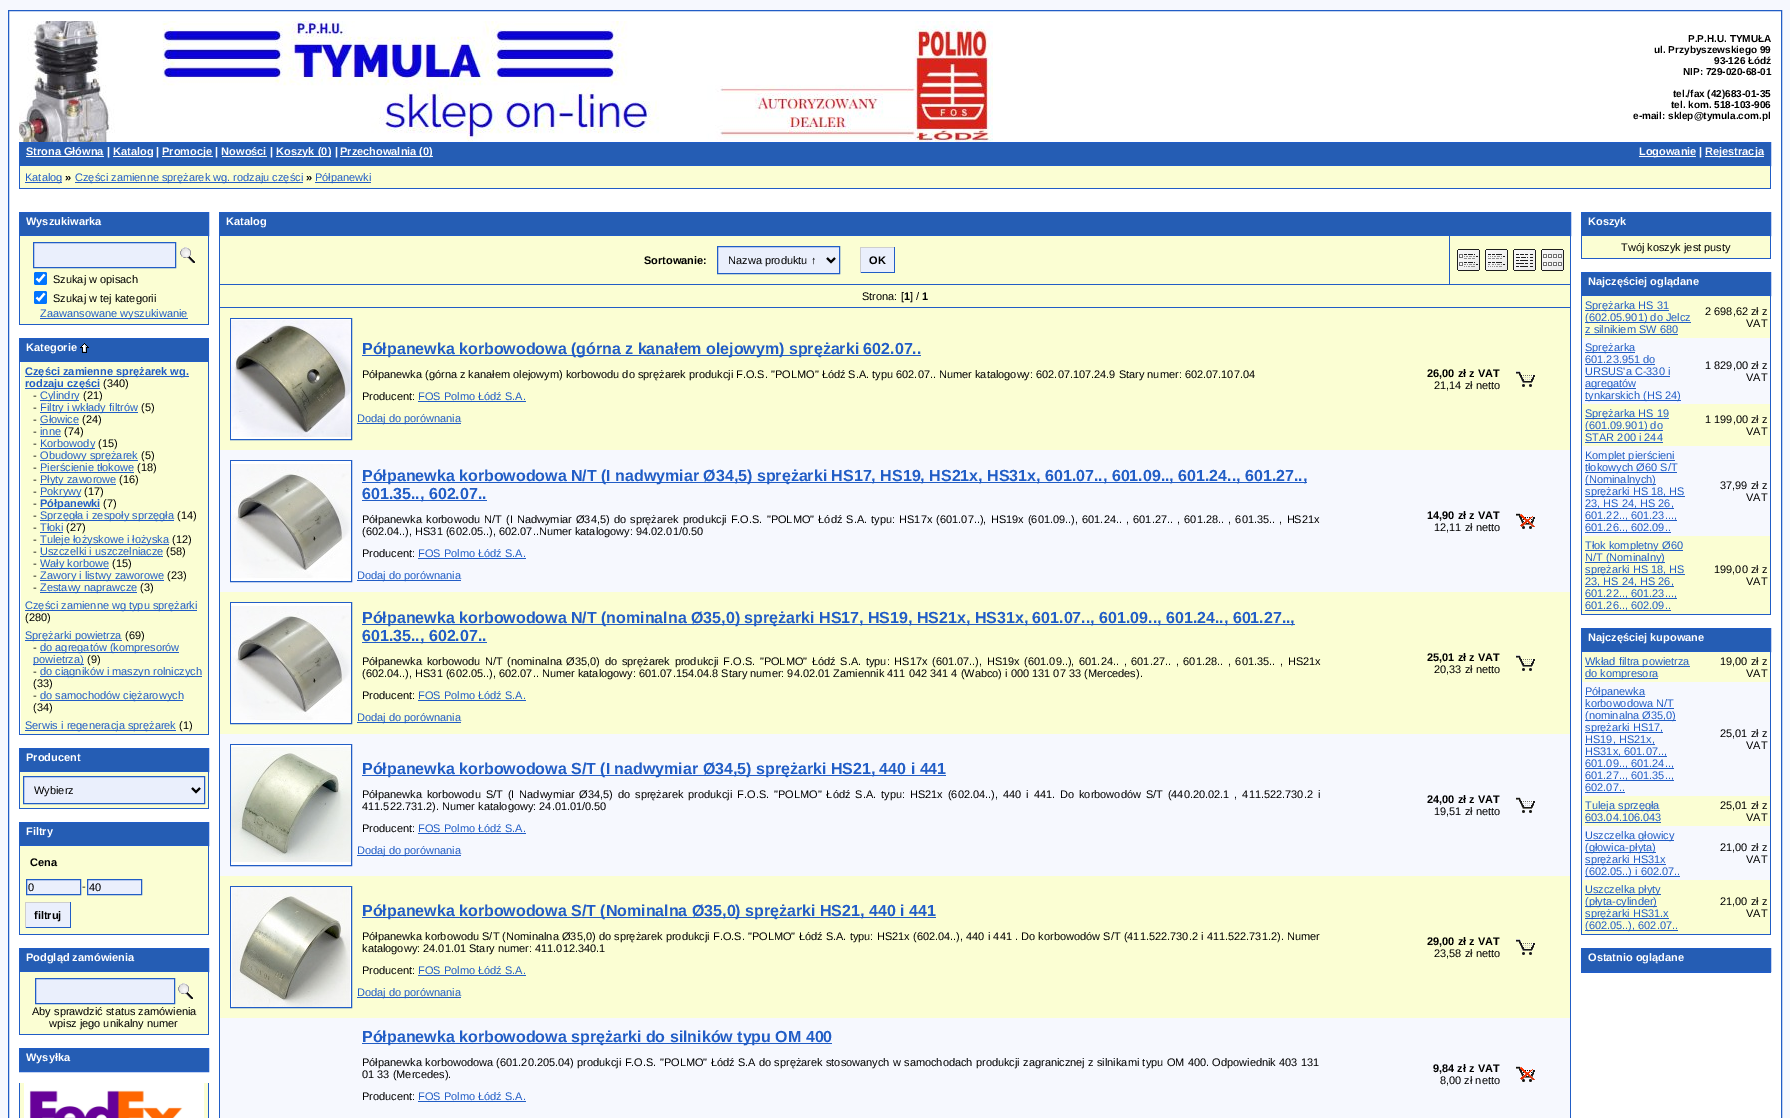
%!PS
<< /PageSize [1790 1118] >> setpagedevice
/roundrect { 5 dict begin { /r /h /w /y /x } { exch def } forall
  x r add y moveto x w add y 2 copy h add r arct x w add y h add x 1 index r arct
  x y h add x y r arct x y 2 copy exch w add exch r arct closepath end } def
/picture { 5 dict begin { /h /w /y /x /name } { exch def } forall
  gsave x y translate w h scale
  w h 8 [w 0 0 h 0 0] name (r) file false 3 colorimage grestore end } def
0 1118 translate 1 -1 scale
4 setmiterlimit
0.965 0.973 0.996 setrgbcolor
0 0 1790 1118 rectfill
1 setgray
newpath 8.5 10.5 moveto 1781.5 10.5 lineto 1781.5 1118.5 lineto 8.5 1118.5 lineto closepath gsave fill grestore
0.129 0.365 0.776 setrgbcolor
stroke
(img1.rgb) 19 21 974 121 picture
/LiberationSans-Bold [10 0 0 -10 0 0] selectfont
0 setgray
1688 42 moveto (P.P.H.U. TYMUŁA) show
1654 53 moveto (ul. Przybyszewskiego 99) show
1714 64 moveto (93-126 Łódź) show
1683 75 moveto (NIP: 729-020-68-01) show
1673 97 moveto (tel./fax \(42\)683-01-35) show
1671 108 moveto (tel. kom. 518-103-906) show
1633 119 moveto (e-mail: sklep@tymula.com.pl) show
0.145 0.365 0.706 setrgbcolor
newpath 19.5 142.5 moveto 1770.5 142.5 lineto 1770.5 165.5 lineto 19.5 165.5 lineto closepath gsave fill grestore
0.129 0.365 0.776 setrgbcolor
stroke
1 setgray
26 156 78 1 rectfill
/LiberationSans-Bold [11 0 0 -11 0 0] selectfont
26 155 moveto (Strona Główna |) show
113 156 40 1 rectfill
113 155 moveto (Katalog |) show
162 156 51 1 rectfill
162 155 moveto (Promocje | Nowości |) show
276 156 45 1 rectfill
276 155 moveto (Koszyk \(0) show
321 156 10 1 rectfill
328 155 moveto (\) |) show
340 156 93 1 rectfill
340 155 moveto (Przechowalnia \(0\)) show
222 156 45 1 rectfill
1639 156 57 1 rectfill
1639 155 moveto (Logowanie |) show
1705 156 59 1 rectfill
1705 155 moveto (Rejestracja) show
0.984 0.996 0.827 setrgbcolor
20 166 1750 22 rectfill
0.129 0.365 0.776 setrgbcolor
1770 166 1 23 rectfill
19 188 1752 1 rectfill
19 166 1 23 rectfill
25 182 37 1 rectfill
/LiberationSans-Regular [11 0 0 -11 0 0] selectfont
25 181 moveto (Katalog) show
/LiberationSans-Bold [11 0 0 -11 0 0] selectfont
0 setgray
65 181 moveto (») show
0.129 0.365 0.776 setrgbcolor
75 182 228 1 rectfill
/LiberationSans-Regular [11 0 0 -11 0 0] selectfont
75 181 moveto (Części zamienne sprężarek wg. rodzaju części) show
/LiberationSans-Bold [11 0 0 -11 0 0] selectfont
0 setgray
306 181 moveto (») show
0.129 0.365 0.776 setrgbcolor
315 182 56 1 rectfill
/LiberationSans-Regular [11 0 0 -11 0 0] selectfont
315 181 moveto (Półpanewki) show
0.145 0.365 0.706 setrgbcolor
newpath 19.5 212.5 moveto 208.5 212.5 lineto 208.5 235.5 lineto 19.5 235.5 lineto closepath gsave fill grestore
0.129 0.365 0.776 setrgbcolor
stroke
/LiberationSans-Bold [11 0 0 -11 0 0] selectfont
1 setgray
26 225 moveto (Wyszukiwarka) show
0.984 0.996 0.827 setrgbcolor
20 236 188 88 rectfill
0.129 0.365 0.776 setrgbcolor
208 236 1 89 rectfill
19 324 190 1 rectfill
19 236 1 89 rectfill
0.918 0.937 0.988 setrgbcolor
newpath 33.5 242.5 moveto 175.5 242.5 lineto 175.5 267.5 lineto 33.5 267.5 lineto closepath gsave fill grestore
0.129 0.365 0.776 setrgbcolor
stroke
(img2.rgb) 180 247 15 16 picture
0 0.459 1 setrgbcolor
34 272 13 13 2 roundrect fill
1 setgray
2.1 setlinewidth
newpath 36.5 278.5 moveto 39 281 lineto 44.5 274.5 lineto stroke
/LiberationSans-Regular [11 0 0 -11 0 0] selectfont
0 setgray
53 283 moveto (Szukaj w opisach) show
0 0.459 1 setrgbcolor
34 291 13 13 2 roundrect fill
1 setgray
newpath 36.5 297.5 moveto 39 300 lineto 44.5 293.5 lineto stroke
0 setgray
53 302 moveto (Szukaj w tej kategorii) show
0.129 0.365 0.776 setrgbcolor
40 318 148 1 rectfill
40 317 moveto (Zaawansowane wyszukiwanie) show
0.145 0.365 0.706 setrgbcolor
20 339 188 22 rectfill
0.129 0.365 0.776 setrgbcolor
19 338 190 1 rectfill
208 338 1 397 rectfill
19 361 190 1 rectfill
19 338 1 24 rectfill
/LiberationSans-Bold [11 0 0 -11 0 0] selectfont
1 setgray
26 351 moveto (Kategorie) show
(img3.rgb) 80 343 9 10 picture
0.984 0.996 0.827 setrgbcolor
21 362 187 372 rectfill
0.129 0.365 0.776 setrgbcolor
19 734 190 1 rectfill
19 362 1 373 rectfill
25 376 164 1 rectfill
25 375 moveto (Części zamienne sprężarek wg.) show
25 388 75 1 rectfill
25 387 moveto (rodzaju części) show
/LiberationSans-Regular [11 0 0 -11 0 0] selectfont
0 setgray
103 387 moveto (\(340\)) show
33 399 moveto (-) show
0.129 0.365 0.776 setrgbcolor
40 400 39 1 rectfill
40 399 moveto (Cylindry) show
0 setgray
83 399 moveto (\(21\)) show
33 411 moveto (-) show
0.129 0.365 0.776 setrgbcolor
40 412 98 1 rectfill
40 411 moveto (Filtry i wkłady filtrów) show
0 setgray
141 411 moveto (\(5\)) show
33 423 moveto (-) show
0.129 0.365 0.776 setrgbcolor
40 423 moveto (Głowice) show
40 424 39 1 rectfill
0 setgray
82 423 moveto (\(24\)) show
33 435 moveto (-) show
0.129 0.365 0.776 setrgbcolor
40 435 moveto (inne) show
40 436 21 1 rectfill
0 setgray
64 435 moveto (\(74\)) show
33 447 moveto (-) show
0.129 0.365 0.776 setrgbcolor
40 448 55 1 rectfill
40 447 moveto (Korbowody) show
0 setgray
98 447 moveto (\(15\)) show
33 459 moveto (-) show
0.129 0.365 0.776 setrgbcolor
40 460 98 1 rectfill
40 459 moveto (Obudowy sprężarek) show
0 setgray
141 459 moveto (\(5\)) show
33 471 moveto (-) show
0.129 0.365 0.776 setrgbcolor
40 471 moveto (Pierścienie tłokowe) show
40 472 94 1 rectfill
0 setgray
137 471 moveto (\(18\)) show
33 483 moveto (-) show
0.129 0.365 0.776 setrgbcolor
40 484 76 1 rectfill
40 483 moveto (Płyty zaworowe) show
0 setgray
119 483 moveto (\(16\)) show
33 495 moveto (-) show
0.129 0.365 0.776 setrgbcolor
40 496 41 1 rectfill
40 495 moveto (Pokrywy) show
0 setgray
84 495 moveto (\(17\)) show
33 507 moveto (-) show
0.129 0.365 0.776 setrgbcolor
40 508 60 1 rectfill
/LiberationSans-Bold [11 0 0 -11 0 0] selectfont
40 507 moveto (Półpanewki) show
/LiberationSans-Regular [11 0 0 -11 0 0] selectfont
0 setgray
103 507 moveto (\(7\)) show
33 519 moveto (-) show
0.129 0.365 0.776 setrgbcolor
40 520 134 1 rectfill
40 519 moveto (Sprzęgła i zespoły sprzęgła) show
0 setgray
177 519 moveto (\(14\)) show
33 531 moveto (-) show
0.129 0.365 0.776 setrgbcolor
40 531 moveto (Tłoki) show
40 532 23 1 rectfill
0 setgray
66 531 moveto (\(27\)) show
33 543 moveto (-) show
0.129 0.365 0.776 setrgbcolor
40 544 129 1 rectfill
40 543 moveto (Tuleje łożyskowe i łożyska) show
0 setgray
172 543 moveto (\(12\)) show
33 555 moveto (-) show
0.129 0.365 0.776 setrgbcolor
40 555 moveto (Uszczelki i uszczelniacze) show
40 556 123 1 rectfill
0 setgray
166 555 moveto (\(58\)) show
33 567 moveto (-) show
0.129 0.365 0.776 setrgbcolor
40 568 69 1 rectfill
40 567 moveto (Wały korbowe) show
0 setgray
112 567 moveto (\(15\)) show
33 579 moveto (-) show
0.129 0.365 0.776 setrgbcolor
40 580 124 1 rectfill
40 579 moveto (Zawory i listwy zaworowe) show
0 setgray
167 579 moveto (\(23\)) show
33 591 moveto (-) show
0.129 0.365 0.776 setrgbcolor
40 592 97 1 rectfill
40 591 moveto (Zestawy naprawcze) show
0 setgray
140 591 moveto (\(3\)) show
0.129 0.365 0.776 setrgbcolor
25 610 172 1 rectfill
25 609 moveto (Części zamienne wg typu sprężarki) show
0 setgray
25 621 moveto (\(280\)) show
0.129 0.365 0.776 setrgbcolor
25 640 97 1 rectfill
25 639 moveto (Sprężarki powietrza) show
0 setgray
125 639 moveto (\(69\)) show
33 651 moveto (-) show
0.129 0.365 0.776 setrgbcolor
40 652 139 1 rectfill
40 651 moveto (do agregatów \(kompresorów) show
33 664 51 1 rectfill
33 663 moveto (powietrza\)) show
0 setgray
87 663 moveto (\(9\)) show
33 675 moveto (-) show
0.129 0.365 0.776 setrgbcolor
40 676 162 1 rectfill
40 675 moveto (do ciągników i maszyn rolniczych) show
0 setgray
33 687 moveto (\(33\)) show
33 699 moveto (-) show
0.129 0.365 0.776 setrgbcolor
40 700 143 1 rectfill
40 699 moveto (do samochodów ciężarowych) show
0 setgray
33 711 moveto (\(34\)) show
0.129 0.365 0.776 setrgbcolor
25 730 151 1 rectfill
25 729 moveto (Serwis i regeneracja sprężarek) show
0 setgray
179 729 moveto (\(1\)) show
0.145 0.365 0.706 setrgbcolor
newpath 19.5 748.5 moveto 208.5 748.5 lineto 208.5 771.5 lineto 19.5 771.5 lineto closepath gsave fill grestore
0.129 0.365 0.776 setrgbcolor
1 setlinewidth
stroke
/LiberationSans-Bold [11 0 0 -11 0 0] selectfont
1 setgray
26 761 moveto (Producent) show
0.984 0.996 0.827 setrgbcolor
20 772 188 36 rectfill
0.129 0.365 0.776 setrgbcolor
208 772 1 37 rectfill
19 808 190 1 rectfill
19 772 1 37 rectfill
0.918 0.937 0.988 setrgbcolor
newpath 23.5 776.5 moveto 204.5 776.5 lineto 204.5 803.5 lineto 23.5 803.5 lineto closepath gsave fill grestore
0.129 0.365 0.776 setrgbcolor
stroke
0 setgray
2 setlinewidth
newpath 192 788 moveto 196 792 lineto 200 788 lineto stroke
/LiberationSans-Regular [11 0 0 -11 0 0] selectfont
34 794 moveto (Wybierz) show
0.145 0.365 0.706 setrgbcolor
newpath 19.5 822.5 moveto 208.5 822.5 lineto 208.5 845.5 lineto 19.5 845.5 lineto closepath gsave fill grestore
0.129 0.365 0.776 setrgbcolor
1 setlinewidth
stroke
/LiberationSans-Bold [11 0 0 -11 0 0] selectfont
1 setgray
26 835 moveto (Filtry) show
0.984 0.996 0.827 setrgbcolor
20 846 188 88 rectfill
0.129 0.365 0.776 setrgbcolor
208 846 1 89 rectfill
19 934 190 1 rectfill
19 846 1 89 rectfill
0 setgray
30 866 moveto (Cena) show
0.918 0.937 0.988 setrgbcolor
newpath 26.5 879.5 moveto 80.5 879.5 lineto 80.5 894.5 lineto 26.5 894.5 lineto closepath gsave fill grestore
0.129 0.365 0.776 setrgbcolor
stroke
/LiberationSans-Regular [11 0 0 -11 0 0] selectfont
0 setgray
28 891 moveto (0) show
82 890 moveto (-) show
0.918 0.937 0.988 setrgbcolor
newpath 87.5 879.5 moveto 141.5 879.5 lineto 141.5 894.5 lineto 87.5 894.5 lineto closepath gsave fill grestore
0.129 0.365 0.776 setrgbcolor
stroke
0 setgray
89 891 moveto (40) show
0.918 0.937 0.988 setrgbcolor
26 903 44 24 rectfill
0.808 setgray
25 902 46 1 rectfill
0.129 0.365 0.776 setrgbcolor
70 902 1 26 rectfill
25 927 46 1 rectfill
0.808 setgray
25 902 1 26 rectfill
/LiberationSans-Bold [11 0 0 -11 0 0] selectfont
0 setgray
34 919 moveto (filtruj) show
0.145 0.365 0.706 setrgbcolor
newpath 19.5 948.5 moveto 208.5 948.5 lineto 208.5 971.5 lineto 19.5 971.5 lineto closepath gsave fill grestore
0.129 0.365 0.776 setrgbcolor
stroke
1 setgray
26 961 moveto (Podgląd zamówienia) show
0.984 0.996 0.827 setrgbcolor
20 972 188 62 rectfill
0.129 0.365 0.776 setrgbcolor
208 972 1 63 rectfill
19 1034 190 1 rectfill
19 972 1 63 rectfill
0.918 0.937 0.988 setrgbcolor
newpath 35.5 978.5 moveto 174.5 978.5 lineto 174.5 1003.5 lineto 35.5 1003.5 lineto closepath gsave fill grestore
0.129 0.365 0.776 setrgbcolor
stroke
(img2.rgb) 178 983 15 16 picture
/LiberationSans-Regular [11 0 0 -11 0 0] selectfont
0 setgray
32 1015 moveto (Aby sprawdzić status zamówienia) show
49 1027 moveto (wpisz jego unikalny numer) show
0.145 0.365 0.706 setrgbcolor
newpath 19.5 1048.5 moveto 208.5 1048.5 lineto 208.5 1071.5 lineto 19.5 1071.5 lineto closepath gsave fill grestore
0.129 0.365 0.776 setrgbcolor
stroke
/LiberationSans-Bold [11 0 0 -11 0 0] selectfont
1 setgray
26 1061 moveto (Wysyłka) show
0.984 0.996 0.827 setrgbcolor
20 1083 188 35 rectfill
0.129 0.365 0.776 setrgbcolor
208 1083 1 35 rectfill
19 1083 1 35 rectfill
(img4.rgb) 24 1083 180 35 picture
0.145 0.365 0.706 setrgbcolor
newpath 219.5 212.5 moveto 1570.5 212.5 lineto 1570.5 235.5 lineto 219.5 235.5 lineto closepath gsave fill grestore
0.129 0.365 0.776 setrgbcolor
stroke
1 setgray
226 225 moveto (Katalog) show
0.984 0.996 0.827 setrgbcolor
220 236 1350 48 rectfill
0.129 0.365 0.776 setrgbcolor
1570 236 1 882 rectfill
219 284 1352 1 rectfill
219 236 1 49 rectfill
0 setgray
644 264 moveto (Sortowanie:) show
0.918 0.937 0.988 setrgbcolor
newpath 717.5 246.5 moveto 839.5 246.5 lineto 839.5 273.5 lineto 717.5 273.5 lineto closepath gsave fill grestore
0.129 0.365 0.776 setrgbcolor
stroke
0 setgray
2 setlinewidth
newpath 827 258 moveto 831 262 lineto 835 258 lineto stroke
/LiberationSans-Regular [11 0 0 -11 0 0] selectfont
728 264 moveto (Nazwa produktu ↑) show
0.918 0.937 0.988 setrgbcolor
861 248 33 24 rectfill
0.808 setgray
860 247 35 1 rectfill
0.129 0.365 0.776 setrgbcolor
894 247 1 26 rectfill
860 272 35 1 rectfill
0.808 setgray
860 247 1 26 rectfill
/LiberationSans-Bold [11 0 0 -11 0 0] selectfont
0 setgray
869 264 moveto (OK) show
0.129 0.365 0.776 setrgbcolor
1449 236 1 49 rectfill
(img5.rgb) 1457 249 23 22 picture
(img6.rgb) 1485 249 23 22 picture
(img7.rgb) 1513 249 23 22 picture
(img8.rgb) 1541 249 23 22 picture
0.984 0.996 0.827 setrgbcolor
220 285 1350 22 rectfill
0.129 0.365 0.776 setrgbcolor
219 307 1352 1 rectfill
219 285 1 833 rectfill
/LiberationSans-Regular [11 0 0 -11 0 0] selectfont
0 setgray
862 300 moveto (Strona: [) show
/LiberationSans-Bold [11 0 0 -11 0 0] selectfont
904 300 moveto (1) show
/LiberationSans-Regular [11 0 0 -11 0 0] selectfont
910 300 moveto (] /) show
/LiberationSans-Bold [11 0 0 -11 0 0] selectfont
922 300 moveto (1) show
0.984 0.996 0.827 setrgbcolor
220 308 1350 142 rectfill
0.129 0.365 0.776 setrgbcolor
1 setlinewidth
230.5 318.5 121 121 rectstroke
(img9.rgb) 231 319 120 120 picture
362 355 559 1 rectfill
/LiberationSans-Bold [16 0 0 -16 0 0] selectfont
362 354 moveto (Półpanewka korbowodowa \(górna z kanałem olejowym\) sprężarki 602.07..) show
/LiberationSans-Regular [11 0 0 -11 0 0] selectfont
0 setgray
362 378 moveto (Półpanewka \(górna z kanałem olejowym\) korbowodu do sprężarek produkcji F.O.S. "POLMO" Łódź S.A. typu 602.07.. Numer katalogowy: 602.07.107.24.9 Stary numer: 602.07.107.04) show
362 400 moveto (Producent:) show
0.129 0.365 0.776 setrgbcolor
418 400 moveto (FOS Polmo Łódź S.A.) show
418 401 108 1 rectfill
357 423 104 1 rectfill
357 422 moveto (Dodaj do porównania) show
/LiberationSans-Bold [11 0 0 -11 0 0] selectfont
0 setgray
1427 377 moveto (26,00 zł z VAT) show
/LiberationSans-Regular [11 0 0 -11 0 0] selectfont
1434 389 moveto (21,14 zł netto) show
(img10.rgb) 1516 371 19 16 picture
0.965 0.973 0.996 setrgbcolor
220 450 1350 142 rectfill
0.129 0.365 0.776 setrgbcolor
230.5 460.5 121 121 rectstroke
(img11.rgb) 231 461 120 120 picture
362 482 945 1 rectfill
/LiberationSans-Bold [16 0 0 -16 0 0] selectfont
362 481 moveto (Półpanewka korbowodowa N/T \(I nadwymiar Ø34,5\) sprężarki HS17, HS19, HS21x, HS31x, 601.07.., 601.09.., 601.24.., 601.27..,) show
362 500 125 1 rectfill
362 499 moveto (601.35.., 602.07..) show
/LiberationSans-Regular [11 0 0 -11 0 0] selectfont
0 setgray
362 523 moveto 1.1 0 32 (Półpanewka korbowodu N/T \(I Nadwymiar Ø34,5\) do sprężarek produkcji F.O.S. "POLMO" Łódź S.A. typu: HS17x \(601.07..\), HS19x \(601.09..\), 601.24.. , 601.27.. , 601.28.. , 601.35.. , HS21x) widthshow
362 535 moveto (\(602.04..\), HS31 \(602.05..\), 602.07..Numer katalogowy: 94.02.01/0.50) show
362 557 moveto (Producent:) show
0.129 0.365 0.776 setrgbcolor
418 557 moveto (FOS Polmo Łódź S.A.) show
418 558 108 1 rectfill
357 580 104 1 rectfill
357 579 moveto (Dodaj do porównania) show
/LiberationSans-Bold [11 0 0 -11 0 0] selectfont
0 setgray
1427 519 moveto (14,90 zł z VAT) show
/LiberationSans-Regular [11 0 0 -11 0 0] selectfont
1434 531 moveto (12,11 zł netto) show
(img12.rgb) 1516 513 19 16 picture
0.984 0.996 0.827 setrgbcolor
220 592 1350 142 rectfill
0.129 0.365 0.776 setrgbcolor
230.5 602.5 121 121 rectstroke
(img11.rgb) 231 603 120 120 picture
362 624 933 1 rectfill
/LiberationSans-Bold [16 0 0 -16 0 0] selectfont
362 623 moveto (Półpanewka korbowodowa N/T \(nominalna Ø35,0\) sprężarki HS17, HS19, HS21x, HS31x, 601.07.., 601.09.., 601.24.., 601.27..,) show
362 642 125 1 rectfill
362 641 moveto (601.35.., 602.07..) show
/LiberationSans-Regular [11 0 0 -11 0 0] selectfont
0 setgray
362 665 moveto 1.6 0 32 (Półpanewka korbowodu N/T \(nominalna Ø35,0\) do sprężarek produkcji F.O.S. "POLMO" Łódź S.A. typu: HS17x \(601.07..\), HS19x \(601.09..\), 601.24.. , 601.27.. , 601.28.. , 601.35.. , HS21x) widthshow
362 677 moveto (\(602.04..\), HS31 \(602.05..\), 602.07.. Numer katalogowy: 601.07.154.04.8 Stary numer: 94.02.01 Zamiennik 411 042 341 4 \(Wabco\) i 000 131 07 33 \(Mercedes\).) show
362 699 moveto (Producent:) show
0.129 0.365 0.776 setrgbcolor
418 699 moveto (FOS Polmo Łódź S.A.) show
418 700 108 1 rectfill
357 722 104 1 rectfill
357 721 moveto (Dodaj do porównania) show
/LiberationSans-Bold [11 0 0 -11 0 0] selectfont
0 setgray
1427 661 moveto (25,01 zł z VAT) show
/LiberationSans-Regular [11 0 0 -11 0 0] selectfont
1434 673 moveto (20,33 zł netto) show
(img10.rgb) 1516 655 19 16 picture
0.965 0.973 0.996 setrgbcolor
220 734 1350 142 rectfill
0.129 0.365 0.776 setrgbcolor
230.5 744.5 121 121 rectstroke
(img13.rgb) 231 745 120 120 picture
362 775 584 1 rectfill
/LiberationSans-Bold [16 0 0 -16 0 0] selectfont
362 774 moveto (Półpanewka korbowodowa S/T \(I nadwymiar Ø34,5\) sprężarki HS21, 440 i 441) show
/LiberationSans-Regular [11 0 0 -11 0 0] selectfont
0 setgray
362 798 moveto 1.9 0 32 (Półpanewka korbowodu S/T \(I Nadwymiar Ø34,5\) do sprężarek produkcji F.O.S. "POLMO" Łódź S.A. typu: HS21x \(602.04..\), 440 i 441. Do korbowodów S/T \(440.20.02.1 , 411.522.730.2 i) widthshow
362 810 moveto (411.522.731.2\). Numer katalogowy: 24.01.01/0.50) show
362 832 moveto (Producent:) show
0.129 0.365 0.776 setrgbcolor
418 832 moveto (FOS Polmo Łódź S.A.) show
418 833 108 1 rectfill
357 855 104 1 rectfill
357 854 moveto (Dodaj do porównania) show
/LiberationSans-Bold [11 0 0 -11 0 0] selectfont
0 setgray
1427 803 moveto (24,00 zł z VAT) show
/LiberationSans-Regular [11 0 0 -11 0 0] selectfont
1434 815 moveto (19,51 zł netto) show
(img14.rgb) 1516 797 19 16 picture
0.984 0.996 0.827 setrgbcolor
220 876 1350 142 rectfill
0.129 0.365 0.776 setrgbcolor
230.5 886.5 121 121 rectstroke
(img15.rgb) 231 887 120 120 picture
362 917 574 1 rectfill
/LiberationSans-Bold [16 0 0 -16 0 0] selectfont
362 916 moveto (Półpanewka korbowodowa S/T \(Nominalna Ø35,0\) sprężarki HS21, 440 i 441) show
/LiberationSans-Regular [11 0 0 -11 0 0] selectfont
0 setgray
362 940 moveto 0.15 0 32 (Półpanewka korbowodu S/T \(Nominalna Ø35,0\) do sprężarek produkcji F.O.S. "POLMO" Łódź S.A. typu: HS21x \(602.04..\), 440 i 441 . Do korbowodów S/T \(411.522.730.2 i 411.522.731.2\). Numer) widthshow
362 952 moveto (katalogowy: 24.01.01 Stary numer: 411.012.340.1) show
362 974 moveto (Producent:) show
0.129 0.365 0.776 setrgbcolor
418 974 moveto (FOS Polmo Łódź S.A.) show
418 975 108 1 rectfill
357 997 104 1 rectfill
357 996 moveto (Dodaj do porównania) show
/LiberationSans-Bold [11 0 0 -11 0 0] selectfont
0 setgray
1427 945 moveto (29,00 zł z VAT) show
/LiberationSans-Regular [11 0 0 -11 0 0] selectfont
1434 957 moveto (23,58 zł netto) show
(img10.rgb) 1516 939 19 16 picture
0.965 0.973 0.996 setrgbcolor
220 1018 1350 100 rectfill
0.129 0.365 0.776 setrgbcolor
362 1043 470 1 rectfill
/LiberationSans-Bold [16 0 0 -16 0 0] selectfont
362 1042 moveto (Półpanewka korbowodowa sprężarki do silników typu OM 400) show
/LiberationSans-Regular [11 0 0 -11 0 0] selectfont
0 setgray
362 1066 moveto 0.25 0 32 (Półpanewka korbowodowa \(601.20.205.04\) produkcji F.O.S. "POLMO" Łódź S.A do sprężarek stosowanych w samochodach produkcji zagranicznej z silnikami typu OM 400. Odpowiednik 403 131) widthshow
362 1078 moveto (01 33 \(Mercedes\).) show
362 1100 moveto (Producent:) show
0.129 0.365 0.776 setrgbcolor
418 1100 moveto (FOS Polmo Łódź S.A.) show
418 1101 108 1 rectfill
/LiberationSans-Bold [11 0 0 -11 0 0] selectfont
0 setgray
1433 1072 moveto (9,84 zł z VAT) show
/LiberationSans-Regular [11 0 0 -11 0 0] selectfont
1440 1084 moveto (8,00 zł netto) show
(img12.rgb) 1516 1066 19 16 picture
0.145 0.365 0.706 setrgbcolor
newpath 1581.5 212.5 moveto 1770.5 212.5 lineto 1770.5 235.5 lineto 1581.5 235.5 lineto closepath gsave fill grestore
0.129 0.365 0.776 setrgbcolor
stroke
/LiberationSans-Bold [11 0 0 -11 0 0] selectfont
1 setgray
1588 225 moveto (Koszyk) show
0.984 0.996 0.827 setrgbcolor
1582 236 188 22 rectfill
0.129 0.365 0.776 setrgbcolor
1770 236 1 23 rectfill
1581 258 190 1 rectfill
1581 236 1 23 rectfill
/LiberationSans-Regular [11 0 0 -11 0 0] selectfont
0 setgray
1621 251 moveto (Twój koszyk jest pusty) show
0.145 0.365 0.706 setrgbcolor
newpath 1581.5 272.5 moveto 1770.5 272.5 lineto 1770.5 295.5 lineto 1581.5 295.5 lineto closepath gsave fill grestore
0.129 0.365 0.776 setrgbcolor
stroke
/LiberationSans-Bold [11 0 0 -11 0 0] selectfont
1 setgray
1588 285 moveto (Najczęściej oglądane) show
0.984 0.996 0.827 setrgbcolor
1582 296 188 318 rectfill
0.129 0.365 0.776 setrgbcolor
1770 296 1 319 rectfill
1581 614 190 1 rectfill
1581 296 1 319 rectfill
1585 310 84 1 rectfill
/LiberationSans-Regular [11 0 0 -11 0 0] selectfont
1585 309 moveto (Sprężarka HS 31) show
1585 322 106 1 rectfill
1585 321 moveto (\(602.05.901\) do Jelcz) show
1585 333 moveto (z silnikiem SW 680) show
1585 334 93 1 rectfill
0 setgray
1705 315 moveto (2 698,62 zł z) show
1746 327 moveto (VAT) show
0.965 0.973 0.996 setrgbcolor
1582 338 188 66 rectfill
0.129 0.365 0.776 setrgbcolor
1585 352 50 1 rectfill
1585 351 moveto (Sprężarka) show
1585 363 moveto (601.23.951 do) show
1585 364 70 1 rectfill
1585 375 moveto (URSUS'a C-330 i) show
1585 376 85 1 rectfill
1585 388 51 1 rectfill
1585 387 moveto (agregatów) show
1585 400 96 1 rectfill
1585 399 moveto (tynkarskich \(HS 24\)) show
0 setgray
1705 369 moveto (1 829,00 zł z) show
1746 381 moveto (VAT) show
0.129 0.365 0.776 setrgbcolor
1585 418 84 1 rectfill
1585 417 moveto (Sprężarka HS 19) show
1585 430 78 1 rectfill
1585 429 moveto (\(601.09.901\) do) show
1585 441 moveto (STAR 200 i 244) show
1585 442 78 1 rectfill
0 setgray
1705 423 moveto (1 199,00 zł z) show
1746 435 moveto (VAT) show
0.965 0.973 0.996 setrgbcolor
1582 446 188 90 rectfill
0.129 0.365 0.776 setrgbcolor
1585 460 90 1 rectfill
1585 459 moveto (Komplet pierścieni) show
1585 472 92 1 rectfill
1585 471 moveto (tłokowych Ø60 S/T) show
1585 484 71 1 rectfill
1585 483 moveto (\(Nominalnych\)) show
1585 496 100 1 rectfill
1585 495 moveto (sprężarki HS 18, HS) show
1585 508 89 1 rectfill
1585 507 moveto (23, HS 24, HS 26,) show
1585 520 92 1 rectfill
1585 519 moveto (601.22.., 601.23...,) show
1585 532 86 1 rectfill
1585 531 moveto (601.26.., 602.09..) show
0 setgray
1720 489 moveto (37,99 zł z) show
1746 501 moveto (VAT) show
0.129 0.365 0.776 setrgbcolor
1585 550 98 1 rectfill
1585 549 moveto (Tłok kompletny Ø60) show
1585 562 80 1 rectfill
1585 561 moveto (N/T \(Nominalny\)) show
1585 574 100 1 rectfill
1585 573 moveto (sprężarki HS 18, HS) show
1585 586 89 1 rectfill
1585 585 moveto (23, HS 24, HS 26,) show
1585 598 92 1 rectfill
1585 597 moveto (601.22.., 601.23...,) show
1585 610 86 1 rectfill
1585 609 moveto (601.26.., 602.09..) show
0 setgray
1714 573 moveto (199,00 zł z) show
1746 585 moveto (VAT) show
0.145 0.365 0.706 setrgbcolor
newpath 1581.5 628.5 moveto 1770.5 628.5 lineto 1770.5 651.5 lineto 1581.5 651.5 lineto closepath gsave fill grestore
0.129 0.365 0.776 setrgbcolor
stroke
/LiberationSans-Bold [11 0 0 -11 0 0] selectfont
1 setgray
1588 641 moveto (Najczęściej kupowane) show
0.984 0.996 0.827 setrgbcolor
1582 652 188 282 rectfill
0.129 0.365 0.776 setrgbcolor
1770 652 1 283 rectfill
1581 934 190 1 rectfill
1581 652 1 283 rectfill
1585 666 105 1 rectfill
/LiberationSans-Regular [11 0 0 -11 0 0] selectfont
1585 665 moveto (Wkład filtra powietrza) show
1585 678 73 1 rectfill
1585 677 moveto (do kompresora) show
0 setgray
1720 665 moveto (19,00 zł z) show
1746 677 moveto (VAT) show
0.965 0.973 0.996 setrgbcolor
1582 682 188 114 rectfill
0.129 0.365 0.776 setrgbcolor
1585 696 60 1 rectfill
1585 695 moveto (Półpanewka) show
1585 707 moveto (korbowodowa N/T) show
1585 708 89 1 rectfill
1585 720 91 1 rectfill
1585 719 moveto (\(nominalna Ø35,0\)) show
1585 732 78 1 rectfill
1585 731 moveto (sprężarki HS17,) show
1585 744 70 1 rectfill
1585 743 moveto (HS19, HS21x,) show
1585 756 82 1 rectfill
1585 755 moveto (HS31x, 601.07..,) show
1585 768 89 1 rectfill
1585 767 moveto (601.09.., 601.24..,) show
1585 780 89 1 rectfill
1585 779 moveto (601.27.., 601.35..,) show
1585 791 moveto (602.07..) show
1585 792 40 1 rectfill
0 setgray
1720 737 moveto (25,01 zł z) show
1746 749 moveto (VAT) show
0.129 0.365 0.776 setrgbcolor
1585 810 75 1 rectfill
1585 809 moveto (Tuleja sprzęgła) show
1585 821 moveto (603.04.106.043) show
1585 822 76 1 rectfill
0 setgray
1720 809 moveto (25,01 zł z) show
1746 821 moveto (VAT) show
0.965 0.973 0.996 setrgbcolor
1582 826 188 54 rectfill
0.129 0.365 0.776 setrgbcolor
1585 840 89 1 rectfill
1585 839 moveto (Uszczelka głowicy) show
1585 852 71 1 rectfill
1585 851 moveto (\(głowica-płyta\)) show
1585 864 81 1 rectfill
1585 863 moveto (sprężarki HS31x) show
1585 876 95 1 rectfill
1585 875 moveto (\(602.05..\) i 602.07..) show
0 setgray
1720 851 moveto (21,00 zł z) show
1746 863 moveto (VAT) show
0.129 0.365 0.776 setrgbcolor
1585 894 76 1 rectfill
1585 893 moveto (Uszczelka płyty) show
1585 906 72 1 rectfill
1585 905 moveto (\(płyta-cylinder\)) show
1585 918 84 1 rectfill
1585 917 moveto (sprężarki HS31.x) show
1585 930 93 1 rectfill
1585 929 moveto (\(602.05..\), 602.07..) show
0 setgray
1720 905 moveto (21,00 zł z) show
1746 917 moveto (VAT) show
0.145 0.365 0.706 setrgbcolor
newpath 1581.5 948.5 moveto 1770.5 948.5 lineto 1770.5 971.5 lineto 1581.5 971.5 lineto closepath gsave fill grestore
0.129 0.365 0.776 setrgbcolor
stroke
/LiberationSans-Bold [11 0 0 -11 0 0] selectfont
1 setgray
1588 961 moveto (Ostatnio oglądane) show
0.129 0.365 0.776 setrgbcolor
1581 972 190 1 rectfill
showpage
